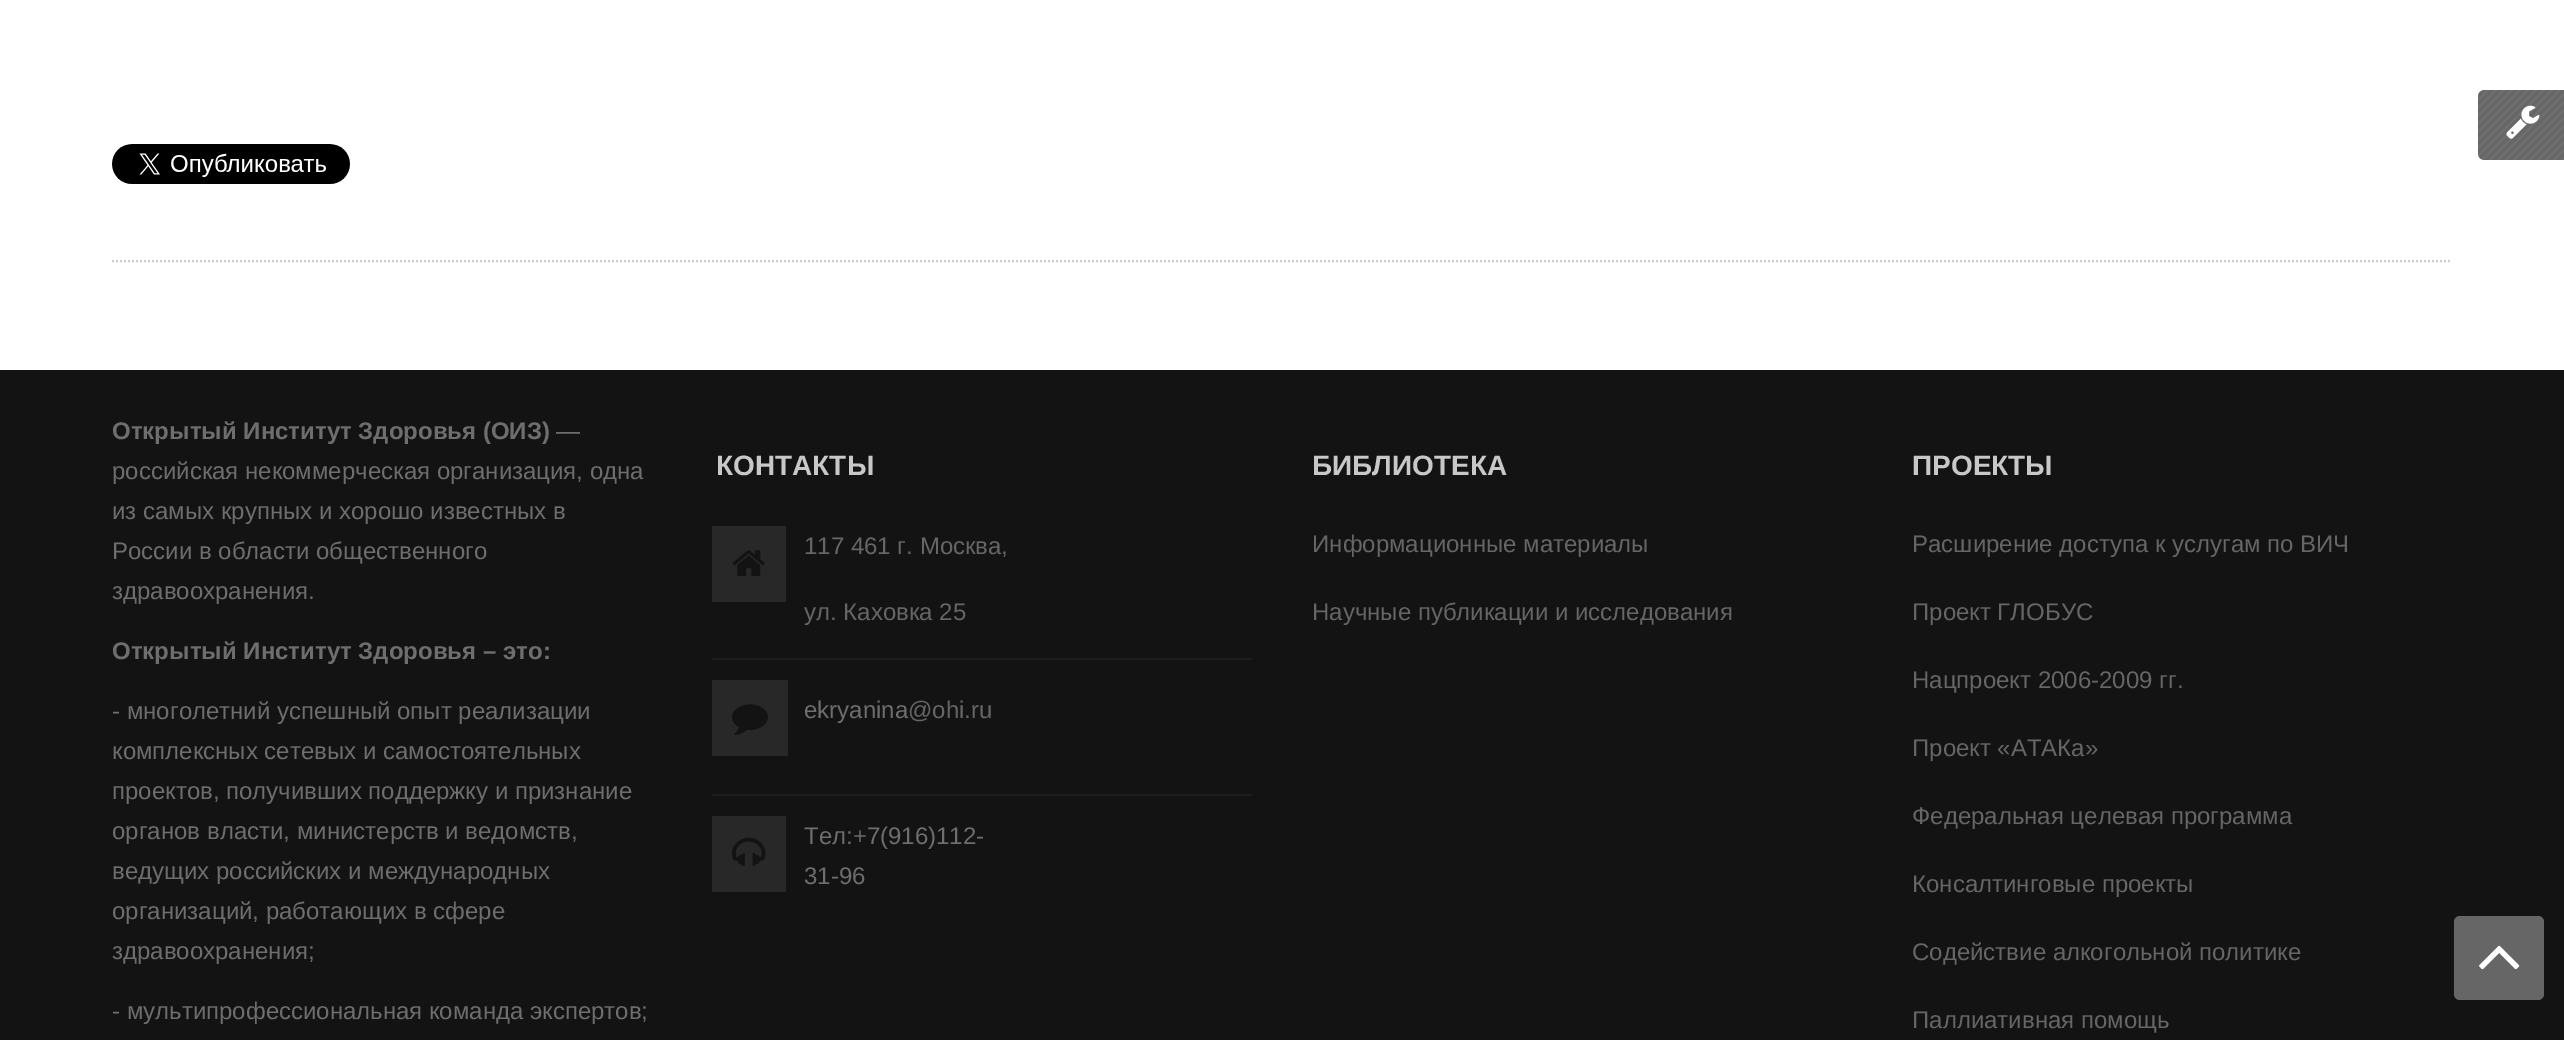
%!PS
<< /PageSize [2564 1040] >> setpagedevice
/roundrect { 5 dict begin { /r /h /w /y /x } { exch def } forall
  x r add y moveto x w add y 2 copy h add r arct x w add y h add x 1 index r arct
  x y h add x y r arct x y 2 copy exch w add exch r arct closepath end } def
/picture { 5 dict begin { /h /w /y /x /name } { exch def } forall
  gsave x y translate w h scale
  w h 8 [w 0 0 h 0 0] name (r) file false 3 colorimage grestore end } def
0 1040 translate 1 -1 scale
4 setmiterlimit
1 setgray
0 0 2564 1040 rectfill
0.4 setgray
newpath 2484 90 moveto 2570 90 lineto 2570 160 lineto 2484 160 lineto 2480.5 160 2478 157.5 2478 154 curveto 2478 96 lineto 2478 92.5 2480.5 90 2484 90 curveto closepath fill
(img1.rgb) 2478 90 86 70 picture
(img2.rgb) 2506 105 34 34 picture
0.8 setgray
2 setlinewidth
[2 2] 0 setdash
newpath 112 261 moveto 2452 261 lineto stroke
(img3.rgb) 112 144 238 40 picture
0.075 setgray
0 370 2564 670 rectfill
/LiberationSans-Bold [24 0 0 -24 0 0] selectfont
0.431 setgray
112 439 moveto (Открытый Институт Здоровья \(ОИЗ\)) show
/LiberationSans-Regular [24 0 0 -24 0 0] selectfont
556 439 moveto (—) show
112 479 moveto (российская некоммерческая организация, одна) show
112 519 moveto (из самых крупных и хорошо известных в) show
112 559 moveto (России в области общественного) show
112 599 moveto (здравоохранения.) show
/LiberationSans-Bold [24 0 0 -24 0 0] selectfont
112 659 moveto (Открытый Институт Здоровья – это:) show
/LiberationSans-Regular [24 0 0 -24 0 0] selectfont
112 719 moveto (- многолетний успешный опыт реализации) show
112 759 moveto (комплексных сетевых и самостоятельных) show
112 799 moveto (проектов, получивших поддержку и признание) show
112 839 moveto (органов власти, министерств и ведомств,) show
112 879 moveto (ведущих российских и международных) show
112 919 moveto (организаций, работающих в сфере) show
112 959 moveto (здравоохранения;) show
112 1019 moveto (- мультипрофессиональная команда экспертов;) show
/LiberationSans-Bold [28 0 0 -28 0 0] selectfont
0.784 setgray
716 475 moveto (КОНТАКТЫ) show
0.118 setgray
712 658 540 2 rectfill
0.157 setgray
712 526 74 76 rectfill
(img4.rgb) 732 550 33 26 picture
/LiberationSans-Regular [24 0 0 -24 0 0] selectfont
0.4 setgray
804 554 moveto (117 461 г. Москва,) show
804 620 moveto (ул. Каховка 25) show
0.118 setgray
712 794 540 2 rectfill
0.157 setgray
712 680 76 76 rectfill
(img5.rgb) 732 704 36 31 picture
0.431 setgray
804 718 moveto (ekryanina) show
0.4 setgray
908 718 moveto (@ohi.ru) show
0.157 setgray
712 816 74 76 rectfill
(img6.rgb) 732 837 34 29 picture
0.431 setgray
804 844 moveto (Тел:+7\(916\)112-) show
804 884 moveto (31-96) show
/LiberationSans-Bold [28 0 0 -28 0 0] selectfont
0.784 setgray
1312 475 moveto (БИБЛИОТЕКА) show
/LiberationSans-Regular [24 0 0 -24 0 0] selectfont
0.4 setgray
1312 552 moveto (Информационные материалы) show
1312 620 moveto (Научные публикации и исследования) show
/LiberationSans-Bold [28 0 0 -28 0 0] selectfont
0.784 setgray
1912 475 moveto (ПРОЕКТЫ) show
/LiberationSans-Regular [24 0 0 -24 0 0] selectfont
0.4 setgray
1912 552 moveto (Расширение доступа к услугам по ВИЧ) show
1912 620 moveto (Проект ГЛОБУС) show
1912 688 moveto (Нацпроект 2006-2009 гг.) show
1912 756 moveto (Проект «АТАКа») show
1912 824 moveto (Федеральная целевая программа) show
1912 892 moveto (Консалтинговые проекты) show
1912 960 moveto (Содействие алкогольной политике) show
1912 1028 moveto (Паллиативная помощь) show
2454 916 90 84 6 roundrect fill
(img7.rgb) 2479 945 41 25 picture
showpage
